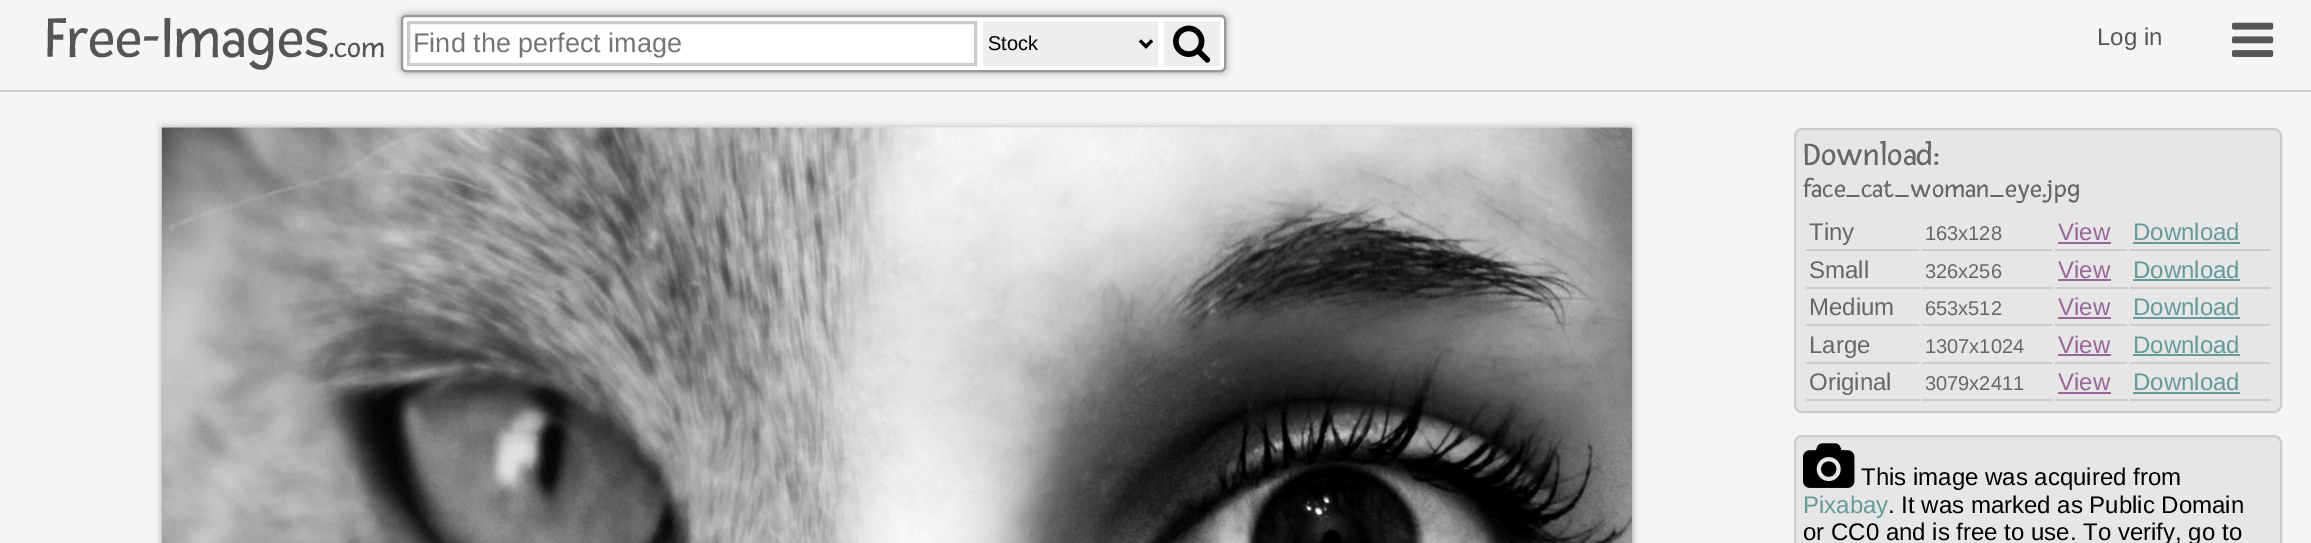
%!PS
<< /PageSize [2311 543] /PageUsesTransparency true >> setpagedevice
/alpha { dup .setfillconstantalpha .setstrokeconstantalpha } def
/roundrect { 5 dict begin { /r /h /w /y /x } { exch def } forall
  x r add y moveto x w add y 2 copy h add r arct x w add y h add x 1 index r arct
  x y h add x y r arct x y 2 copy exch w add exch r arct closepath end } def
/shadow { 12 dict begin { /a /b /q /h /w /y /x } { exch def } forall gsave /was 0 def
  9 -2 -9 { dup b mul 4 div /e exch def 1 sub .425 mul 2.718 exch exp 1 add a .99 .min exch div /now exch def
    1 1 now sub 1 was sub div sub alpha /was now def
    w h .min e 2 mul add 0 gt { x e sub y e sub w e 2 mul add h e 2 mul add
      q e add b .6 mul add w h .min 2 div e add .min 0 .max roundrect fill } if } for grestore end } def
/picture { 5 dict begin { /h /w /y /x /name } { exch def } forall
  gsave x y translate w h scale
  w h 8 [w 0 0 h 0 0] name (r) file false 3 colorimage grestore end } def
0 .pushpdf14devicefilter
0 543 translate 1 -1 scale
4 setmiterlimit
0.961 setgray
0 0 2311 543 rectfill
0.8 setgray
0 90 2311 2 rectfill
/Fresca-Regular [60 0 0 -60 0 0] selectfont
0.333 setgray
45 57 moveto (Free-Images) show
/Fresca-Regular [30 0 0 -30 0 0] selectfont
329 57 moveto (.com) show
0.6 setgray
401 15 825 57 5 4 1 shadow
1 setgray
402 16 823 55 4 roundrect gsave fill grestore
0.6 setgray
2 setlinewidth
stroke
0.8 setgray
3 setlinewidth
408.5 22.5 567 42 rectstroke
/LiberationSans-Regular [27 0 0 -27 0 0] selectfont
0.459 setgray
413 52 moveto (Find the perfect image) show
0.933 setgray
983 21 175 45 rectfill
0 setgray
newpath 1140 40.5 moveto 1146 46.5 lineto 1152 40.5 lineto stroke
/LiberationSans-Regular [20 0 0 -20 0 0] selectfont
988 50 moveto (Stock) show
0.933 setgray
1164 21 56 45 rectfill
(img1.rgb) 1173 25 38 38 picture
/LiberationSans-Regular [24 0 0 -24 0 0] selectfont
0.333 setgray
2097 45 moveto (Log in) show
(img2.rgb) 2232 22 42 35 picture
0.6 setgray
162 128 1470 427 0 4 1 shadow
(img3.rgb) 162 127 1470 416 picture
0.902 setgray
1795 129 486 283 7 roundrect gsave fill grestore
0.8 setgray
2 setlinewidth
stroke
/Fresca-Regular [33 0 0 -33 0 0] selectfont
0.4 setgray
1803 165 moveto (Download:) show
/Fresca-Regular [26.4 0 0 -26.4 0 0] selectfont
1803 197 moveto (face_cat_woman_eye.jpg) show
0.8 setgray
1806 249 113 2 rectfill
/LiberationSans-Regular [24 0 0 -24 0 0] selectfont
0.4 setgray
1809 240 moveto (Tiny) show
0.8 setgray
1922 249 130 2 rectfill
/LiberationSans-Regular [20 0 0 -20 0 0] selectfont
0.4 setgray
1925 240 moveto (163x128) show
0.8 setgray
2055 249 72 2 rectfill
/LiberationSans-Regular [24 0 0 -24 0 0] selectfont
0.6 0.4 0.6 setrgbcolor
2058 240 moveto (View) show
2058 242 53 2 rectfill
0.8 setgray
2130 249 140 2 rectfill
0.4 0.6 0.6 setrgbcolor
2133 240 moveto (Download) show
2133 242 107 2 rectfill
0.8 setgray
1806 287 113 2 rectfill
0.4 setgray
1809 278 moveto (Small) show
0.8 setgray
1922 287 130 2 rectfill
/LiberationSans-Regular [20 0 0 -20 0 0] selectfont
0.4 setgray
1925 278 moveto (326x256) show
0.8 setgray
2055 287 72 2 rectfill
/LiberationSans-Regular [24 0 0 -24 0 0] selectfont
0.6 0.4 0.6 setrgbcolor
2058 278 moveto (View) show
2058 279 53 2 rectfill
0.8 setgray
2130 287 140 2 rectfill
0.4 0.6 0.6 setrgbcolor
2133 278 moveto (Download) show
2133 279 107 2 rectfill
0.8 setgray
1806 324 113 2 rectfill
0.4 setgray
1809 315 moveto (Medium) show
0.8 setgray
1922 324 130 2 rectfill
/LiberationSans-Regular [20 0 0 -20 0 0] selectfont
0.4 setgray
1925 315 moveto (653x512) show
0.8 setgray
2055 324 72 2 rectfill
/LiberationSans-Regular [24 0 0 -24 0 0] selectfont
0.6 0.4 0.6 setrgbcolor
2058 315 moveto (View) show
2058 317 53 2 rectfill
0.8 setgray
2130 324 140 2 rectfill
0.4 0.6 0.6 setrgbcolor
2133 315 moveto (Download) show
2133 317 107 2 rectfill
0.8 setgray
1806 362 113 2 rectfill
0.4 setgray
1809 353 moveto (Large) show
0.8 setgray
1922 362 130 2 rectfill
/LiberationSans-Regular [20 0 0 -20 0 0] selectfont
0.4 setgray
1925 353 moveto (1307x1024) show
0.8 setgray
2055 362 72 2 rectfill
/LiberationSans-Regular [24 0 0 -24 0 0] selectfont
0.6 0.4 0.6 setrgbcolor
2058 353 moveto (View) show
2058 354 53 2 rectfill
0.8 setgray
2130 362 140 2 rectfill
0.4 0.6 0.6 setrgbcolor
2133 353 moveto (Download) show
2133 354 107 2 rectfill
0.8 setgray
1806 399 113 2 rectfill
0.4 setgray
1809 390 moveto (Original) show
0.8 setgray
1922 399 130 2 rectfill
/LiberationSans-Regular [20 0 0 -20 0 0] selectfont
0.4 setgray
1925 390 moveto (3079x2411) show
0.8 setgray
2055 399 72 2 rectfill
/LiberationSans-Regular [24 0 0 -24 0 0] selectfont
0.6 0.4 0.6 setrgbcolor
2058 390 moveto (View) show
2058 392 53 2 rectfill
0.8 setgray
2130 399 140 2 rectfill
0.4 0.6 0.6 setrgbcolor
2133 390 moveto (Download) show
2133 392 107 2 rectfill
0.902 setgray
1795 436 486 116 7 roundrect gsave fill grestore
0.8 setgray
stroke
(img4.rgb) 1803 443 52 45 picture
0 setgray
1861 485 moveto (This image was acquired from) show
0.4 0.6 0.6 setrgbcolor
1803 513 moveto (Pixabay) show
0 setgray
1888 513 moveto (. It was marked as Public Domain) show
1803 540 moveto (or CC0 and is free to use. To verify, go to) show
.poppdf14devicefilter showpage
